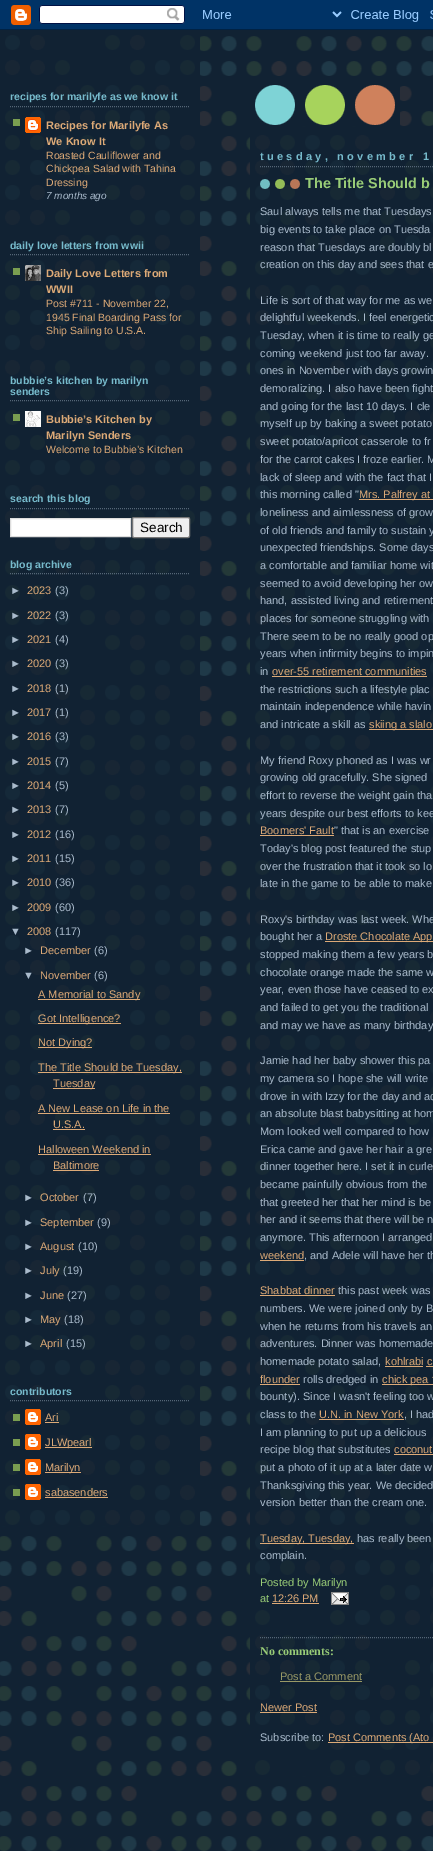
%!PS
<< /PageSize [433 1851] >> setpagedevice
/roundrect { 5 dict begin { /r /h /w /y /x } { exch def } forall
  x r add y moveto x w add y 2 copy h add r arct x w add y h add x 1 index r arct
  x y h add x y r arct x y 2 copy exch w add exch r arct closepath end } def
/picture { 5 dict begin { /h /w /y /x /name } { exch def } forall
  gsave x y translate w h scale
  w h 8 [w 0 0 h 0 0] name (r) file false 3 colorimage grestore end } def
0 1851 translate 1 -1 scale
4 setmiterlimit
1 setgray
0 0 433 1851 rectfill
(img1.rgb) 0 30 433 1821 picture
(img2.rgb) 0 0 433 30 picture
(img3.rgb) 255 85 145 41 picture
(img4.rgb) 0 35 200 1491 picture
0.333 0.4 0.467 setrgbcolor
[1 1] 0 setdash
newpath 10 106.5 moveto 190 106.5 lineto stroke
/LiberationSans-Bold [10.5 0 0 -10.5 0 0] selectfont
0.467 0.733 0.8 setrgbcolor
10 100 moveto (recipes for marilyfe as we know it) show
0.478 0.62 0.314 setrgbcolor
13 119 7 7 rectfill
(img5.rgb) 25 117 16 16 picture
/LiberationSans-Bold [11 0 0 -11 0 0] selectfont
0.867 0.667 0.467 setrgbcolor
46 129 moveto (Recipes for Marilyfe As) show
46 145 moveto (We Know It) show
/LiberationSans-Regular [10.5 0 0 -10.5 0 0] selectfont
46 159 moveto (Roasted Cauliflower and) show
46 172 moveto (Chickpea Salad with Tahina) show
46 186 moveto (Dressing) show
/LiberationSans-Italic [10 0 0 -10 0 0] selectfont
0.667 0.733 0.8 setrgbcolor
46 199 moveto (7 months ago) show
0.333 0.4 0.467 setrgbcolor
newpath 10 254.5 moveto 190 254.5 lineto stroke
/LiberationSans-Bold [10.5 0 0 -10.5 0 0] selectfont
0.467 0.733 0.8 setrgbcolor
10 249 moveto (daily love letters from wwii) show
0.478 0.62 0.314 setrgbcolor
13 268 7 7 rectfill
(img6.rgb) 25 265 16 16 picture
/LiberationSans-Bold [11 0 0 -11 0 0] selectfont
0.867 0.667 0.467 setrgbcolor
46 277 moveto (Daily Love Letters from) show
46 293 moveto (WWII) show
/LiberationSans-Regular [10.5 0 0 -10.5 0 0] selectfont
46 307 moveto (Post #711 - November 22,) show
46 321 moveto (1945 Final Boarding Pass for) show
46 334 moveto (Ship Sailing to U.S.A.) show
0.333 0.4 0.467 setrgbcolor
newpath 10 400.5 moveto 190 400.5 lineto stroke
/LiberationSans-Bold [10.5 0 0 -10.5 0 0] selectfont
0.467 0.733 0.8 setrgbcolor
10 384 moveto (bubbie’s kitchen by marilyn) show
10 395 moveto (senders) show
0.478 0.62 0.314 setrgbcolor
13 414 7 7 rectfill
(img7.rgb) 25 411 16 16 picture
/LiberationSans-Bold [11 0 0 -11 0 0] selectfont
0.867 0.667 0.467 setrgbcolor
46 423 moveto (Bubbie’s Kitchen by) show
46 439 moveto (Marilyn Senders) show
/LiberationSans-Regular [10.5 0 0 -10.5 0 0] selectfont
46 453 moveto (Welcome to Bubbie’s Kitchen) show
0.333 0.4 0.467 setrgbcolor
newpath 10 508.5 moveto 190 508.5 lineto stroke
/LiberationSans-Bold [10.5 0 0 -10.5 0 0] selectfont
0.467 0.733 0.8 setrgbcolor
10 502 moveto (search this blog) show
1 setgray
newpath 10.5 518.5 moveto 130.5 518.5 lineto 130.5 536.5 lineto 10.5 536.5 lineto closepath gsave fill grestore
0.867 setgray
[] 0 setdash
stroke
0.937 setgray
132.5 517.5 57 20 1.5 roundrect gsave fill grestore
0.463 setgray
stroke
/LiberationSans-Regular [13.5 0 0 -13.5 0 0] selectfont
0 setgray
140 532 moveto (Search) show
0.333 0.4 0.467 setrgbcolor
[1 1] 0 setdash
newpath 10 573.5 moveto 190 573.5 lineto stroke
/LiberationSans-Bold [10.5 0 0 -10.5 0 0] selectfont
0.467 0.733 0.8 setrgbcolor
10 568 moveto (blog archive) show
/LiberationSans-Regular [11 0 0 -11 0 0] selectfont
0.667 0.733 0.8 setrgbcolor
10 594 moveto (►) show
0.867 0.667 0.467 setrgbcolor
27 594 moveto (2023) show
0.667 0.733 0.8 setrgbcolor
55 594 moveto (\(3\)) show
10 619 moveto (►) show
0.867 0.667 0.467 setrgbcolor
27 619 moveto (2022) show
0.667 0.733 0.8 setrgbcolor
55 619 moveto (\(3\)) show
10 643 moveto (►) show
0.867 0.667 0.467 setrgbcolor
27 643 moveto (2021) show
0.667 0.733 0.8 setrgbcolor
55 643 moveto (\(4\)) show
10 667 moveto (►) show
0.867 0.667 0.467 setrgbcolor
27 667 moveto (2020) show
0.667 0.733 0.8 setrgbcolor
55 667 moveto (\(3\)) show
10 692 moveto (►) show
0.867 0.667 0.467 setrgbcolor
27 692 moveto (2018) show
0.667 0.733 0.8 setrgbcolor
55 692 moveto (\(1\)) show
10 716 moveto (►) show
0.867 0.667 0.467 setrgbcolor
27 716 moveto (2017) show
0.667 0.733 0.8 setrgbcolor
55 716 moveto (\(1\)) show
10 740 moveto (►) show
0.867 0.667 0.467 setrgbcolor
27 740 moveto (2016) show
0.667 0.733 0.8 setrgbcolor
55 740 moveto (\(3\)) show
10 765 moveto (►) show
0.867 0.667 0.467 setrgbcolor
27 765 moveto (2015) show
0.667 0.733 0.8 setrgbcolor
55 765 moveto (\(7\)) show
10 789 moveto (►) show
0.867 0.667 0.467 setrgbcolor
27 789 moveto (2014) show
0.667 0.733 0.8 setrgbcolor
55 789 moveto (\(5\)) show
10 813 moveto (►) show
0.867 0.667 0.467 setrgbcolor
27 813 moveto (2013) show
0.667 0.733 0.8 setrgbcolor
55 813 moveto (\(7\)) show
10 838 moveto (►) show
0.867 0.667 0.467 setrgbcolor
27 838 moveto (2012) show
0.667 0.733 0.8 setrgbcolor
55 838 moveto (\(16\)) show
10 862 moveto (►) show
0.867 0.667 0.467 setrgbcolor
27 862 moveto (2011) show
0.667 0.733 0.8 setrgbcolor
55 862 moveto (\(15\)) show
10 886 moveto (►) show
0.867 0.667 0.467 setrgbcolor
27 886 moveto (2010) show
0.667 0.733 0.8 setrgbcolor
55 886 moveto (\(36\)) show
10 911 moveto (►) show
0.867 0.667 0.467 setrgbcolor
27 911 moveto (2009) show
0.667 0.733 0.8 setrgbcolor
55 911 moveto (\(60\)) show
10 935 moveto (▼) show
0.867 0.667 0.467 setrgbcolor
27 935 moveto (2008) show
0.667 0.733 0.8 setrgbcolor
55 935 moveto (\(117\)) show
23 954 moveto (►) show
0.867 0.667 0.467 setrgbcolor
40 954 moveto (December) show
0.667 0.733 0.8 setrgbcolor
94 954 moveto (\(6\)) show
23 979 moveto (▼) show
0.867 0.667 0.467 setrgbcolor
40 979 moveto (November) show
0.667 0.733 0.8 setrgbcolor
94 979 moveto (\(6\)) show
0.867 0.667 0.467 setrgbcolor
38 999 102 1 rectfill
38 998 moveto (A Memorial to Sandy) show
38 1023 83 1 rectfill
38 1022 moveto (Got Intelligence?) show
38 1047 54 1 rectfill
38 1046 moveto (Not Dying?) show
38 1072 144 1 rectfill
38 1071 moveto (The Title Should be Tuesday,) show
53 1088 42 1 rectfill
53 1087 moveto (Tuesday) show
38 1112 moveto (A New Lease on Life in the) show
38 1113 132 1 rectfill
53 1128 moveto (U.S.A.) show
53 1129 32 1 rectfill
38 1153 moveto (Halloween Weekend in) show
38 1154 113 1 rectfill
53 1169 moveto (Baltimore) show
53 1170 46 1 rectfill
0.667 0.733 0.8 setrgbcolor
23 1201 moveto (►) show
0.867 0.667 0.467 setrgbcolor
40 1201 moveto (October) show
0.667 0.733 0.8 setrgbcolor
83 1201 moveto (\(7\)) show
23 1226 moveto (►) show
0.867 0.667 0.467 setrgbcolor
40 1226 moveto (September) show
0.667 0.733 0.8 setrgbcolor
97 1226 moveto (\(9\)) show
23 1250 moveto (►) show
0.867 0.667 0.467 setrgbcolor
40 1250 moveto (August) show
0.667 0.733 0.8 setrgbcolor
78 1250 moveto (\(10\)) show
23 1274 moveto (►) show
0.867 0.667 0.467 setrgbcolor
40 1274 moveto (July) show
0.667 0.733 0.8 setrgbcolor
63 1274 moveto (\(19\)) show
23 1299 moveto (►) show
0.867 0.667 0.467 setrgbcolor
40 1299 moveto (June) show
0.667 0.733 0.8 setrgbcolor
67 1299 moveto (\(27\)) show
23 1323 moveto (►) show
0.867 0.667 0.467 setrgbcolor
40 1323 moveto (May) show
0.667 0.733 0.8 setrgbcolor
64 1323 moveto (\(18\)) show
23 1347 moveto (►) show
0.867 0.667 0.467 setrgbcolor
40 1347 moveto (April) show
0.667 0.733 0.8 setrgbcolor
66 1347 moveto (\(15\)) show
0.333 0.4 0.467 setrgbcolor
newpath 10 1400.5 moveto 190 1400.5 lineto stroke
/LiberationSans-Bold [10.5 0 0 -10.5 0 0] selectfont
0.467 0.733 0.8 setrgbcolor
10 1395 moveto (contributors) show
0.478 0.62 0.314 setrgbcolor
13 1414 7 7 rectfill
(img8.rgb) 25 1409 16 16 picture
/LiberationSans-Regular [11 0 0 -11 0 0] selectfont
0.867 0.667 0.467 setrgbcolor
45 1421 moveto (Ari) show
45 1422 14 1 rectfill
0.478 0.62 0.314 setrgbcolor
13 1439 7 7 rectfill
(img9.rgb) 25 1434 16 16 picture
0.867 0.667 0.467 setrgbcolor
45 1447 47 1 rectfill
45 1446 moveto (JLWpearl) show
0.478 0.62 0.314 setrgbcolor
13 1464 7 7 rectfill
(img10.rgb) 25 1459 16 16 picture
0.867 0.667 0.467 setrgbcolor
45 1472 36 1 rectfill
45 1471 moveto (Marilyn) show
0.478 0.62 0.314 setrgbcolor
13 1489 7 7 rectfill
(img10.rgb) 25 1484 16 16 picture
0.867 0.667 0.467 setrgbcolor
45 1496 moveto (sabasenders) show
45 1497 63 1 rectfill
(img11.rgb) 250 135 183 1641 picture
0.333 0.4 0.467 setrgbcolor
newpath 260 166.5 moveto 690 166.5 lineto stroke
/LiberationSans-Bold [11 0 0 -11 0 0] selectfont
0.467 0.733 0.8 setrgbcolor
260 160 moveto 3.3 0 (tuesday, november 1) ashow
(img12.rgb) 260 179 40 10 picture
/LiberationSans-Bold [14.4 0 0 -14.4 0 0] selectfont
0.6 0.8 0.467 setrgbcolor
305 188 moveto (The Title Should b) show
/LiberationSans-Regular [11 0 0 -11 0 0] selectfont
0.667 0.733 0.8 setrgbcolor
260 215 moveto (Saul always tells me that Tuesdays) show
260 233 moveto (big events to take place on Tuesda) show
260 251 moveto (reason that Tuesdays are doubly bl) show
260 268 moveto (creation on this day and sees that e) show
260 304 moveto (Life is sort of that way for me as we) show
260 321 moveto (delightful weekends. I feel energetic) show
260 339 moveto (Tuesday, when it is time to really ge) show
260 357 moveto (coming weekend just too far away.) show
260 374 moveto (ones in November with days growin) show
260 392 moveto (demoralizing. I also have been fight) show
260 410 moveto (and going for the last 10 days. I cle) show
260 427 moveto (myself up by baking a sweet potato) show
260 445 moveto (sweet potato/apricot casserole to fr) show
260 463 moveto (for the carrot cakes I froze earlier. M) show
260 481 moveto (lack of sleep and with the fact that I) show
260 498 moveto (this morning called ") show
0.867 0.667 0.467 setrgbcolor
359 499 74 1 rectfill
359 498 moveto (Mrs. Palfrey at) show
0.667 0.733 0.8 setrgbcolor
260 516 moveto (loneliness and aimlessness of grow) show
260 534 moveto (of old friends and family to sustain y) show
260 551 moveto (unexpected friendships. Some days) show
260 569 moveto (a comfortable and familiar home wit) show
260 587 moveto (seemed to avoid developing her ow) show
260 604 moveto (hand, assisted living and retirement) show
260 622 moveto (places for someone struggling with) show
260 640 moveto (There seem to be no really good op) show
260 657 moveto (years when infirmity begins to impin) show
260 675 moveto (in) show
0.867 0.667 0.467 setrgbcolor
272 675 moveto (over-55 retirement communities) show
272 676 155 1 rectfill
0.667 0.733 0.8 setrgbcolor
260 693 moveto (the restrictions such a lifestyle plac) show
260 710 moveto (maintain independence while havin) show
260 728 moveto (and intricate a skill as) show
0.867 0.667 0.467 setrgbcolor
369 729 64 1 rectfill
369 728 moveto (skiing a slalo) show
0.667 0.733 0.8 setrgbcolor
260 764 moveto (My friend Roxy phoned as I was wr) show
260 781 moveto (growing old gracefully. She signed) show
260 799 moveto (effort to reverse the weight gain tha) show
260 817 moveto (years despite our best efforts to kee) show
0.867 0.667 0.467 setrgbcolor
260 834 moveto (Boomers' Fault) show
260 835 74 1 rectfill
0.667 0.733 0.8 setrgbcolor
334 834 moveto (" that is an exercise) show
260 852 moveto (Today's blog post featured the stup) show
260 870 moveto (over the frustration that it took so lo) show
260 887 moveto (late in the game to be able to make) show
260 923 moveto (Roxy's birthday was last week. Whe) show
260 940 moveto (bought her a) show
0.867 0.667 0.467 setrgbcolor
325 941 108 1 rectfill
325 940 moveto (Droste Chocolate App) show
0.667 0.733 0.8 setrgbcolor
260 958 moveto (stopped making them a few years b) show
260 976 moveto (chocolate orange made the same w) show
260 993 moveto (year, even those have ceased to ex) show
260 1011 moveto (and failed to get you the traditional) show
260 1029 moveto (and may we have as many birthday) show
260 1064 moveto (Jamie had her baby shower this pa) show
260 1082 moveto (my camera so I hope she will write) show
260 1100 moveto (drove in with Izzy for the day and ac) show
260 1117 moveto (an absolute blast babysitting at hom) show
260 1135 moveto (Mom looked well compared to how) show
260 1153 moveto (Erica came and gave her hair a gre) show
260 1170 moveto (dinner together here. I set it in curle) show
260 1188 moveto (became painfully obvious from the) show
260 1206 moveto (that greeted her that her mind is be) show
260 1223 moveto (her and it seems that there will be n) show
260 1241 moveto (anymore. This afternoon I arranged) show
0.867 0.667 0.467 setrgbcolor
260 1259 moveto (weekend) show
260 1260 44 1 rectfill
0.667 0.733 0.8 setrgbcolor
304 1259 moveto (, and Adele will have her th) show
0.867 0.667 0.467 setrgbcolor
260 1294 moveto (Shabbat dinner) show
260 1295 75 1 rectfill
0.667 0.733 0.8 setrgbcolor
338 1294 moveto (this past week was) show
260 1312 moveto (numbers. We were joined only by B) show
260 1330 moveto (when he returns from his travels an) show
260 1347 moveto (adventures. Dinner was homemade) show
260 1365 moveto (homemade potato salad,) show
0.867 0.667 0.467 setrgbcolor
385 1365 moveto (kohlrabi c) show
385 1366 38 1 rectfill
426 1366 7 1 rectfill
260 1383 moveto (flounder) show
260 1384 40 1 rectfill
0.667 0.733 0.8 setrgbcolor
303 1383 moveto (rolls dredged in) show
0.867 0.667 0.467 setrgbcolor
382 1384 51 1 rectfill
382 1383 moveto (chick pea f) show
0.667 0.733 0.8 setrgbcolor
260 1400 moveto (bounty\). Since I wasn't feeling too w) show
260 1418 moveto (class to the) show
0.867 0.667 0.467 setrgbcolor
319 1418 moveto (U.N. in New York) show
319 1419 85 1 rectfill
0.667 0.733 0.8 setrgbcolor
404 1418 moveto (, I had) show
260 1436 moveto (I am planning to put up a delicious) show
260 1453 moveto (recipe blog that substitutes) show
0.867 0.667 0.467 setrgbcolor
394 1453 moveto (coconut) show
394 1454 39 1 rectfill
0.667 0.733 0.8 setrgbcolor
260 1471 moveto (put a photo of it up at a later date w) show
260 1489 moveto (Thanksgiving this year. We decided) show
260 1506 moveto (version better than the cream one.) show
0.867 0.667 0.467 setrgbcolor
260 1543 94 1 rectfill
260 1542 moveto (Tuesday, Tuesday,) show
0.667 0.733 0.8 setrgbcolor
357 1542 moveto (has really been) show
260 1559 moveto (complain.) show
0.6 0.8 0.467 setrgbcolor
260 1586 moveto (Posted by Marilyn) show
260 1602 moveto (at) show
0.867 0.667 0.467 setrgbcolor
272 1602 moveto (12:26 PM) show
272 1603 47 1 rectfill
(img13.rgb) 331 1592 18 13 picture
0.333 0.4 0.467 setrgbcolor
newpath 260 1637.5 moveto 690 1637.5 lineto stroke
/LiberationSerif-Bold [12 0 0 -12 0 0] selectfont
0.6 0.8 0.467 setrgbcolor
260 1655 moveto (No comments:) show
/LiberationSans-Regular [11 0 0 -11 0 0] selectfont
0.6 0.6 0.4 setrgbcolor
280 1680 moveto (Post a Comment) show
280 1681 82 1 rectfill
0.867 0.667 0.467 setrgbcolor
260 1711 moveto (Newer Post) show
260 1712 57 1 rectfill
0.667 0.733 0.8 setrgbcolor
260 1741 moveto (Subscribe to:) show
0.867 0.667 0.467 setrgbcolor
328 1742 105 1 rectfill
328 1741 moveto (Post Comments \(Ato) show
showpage
